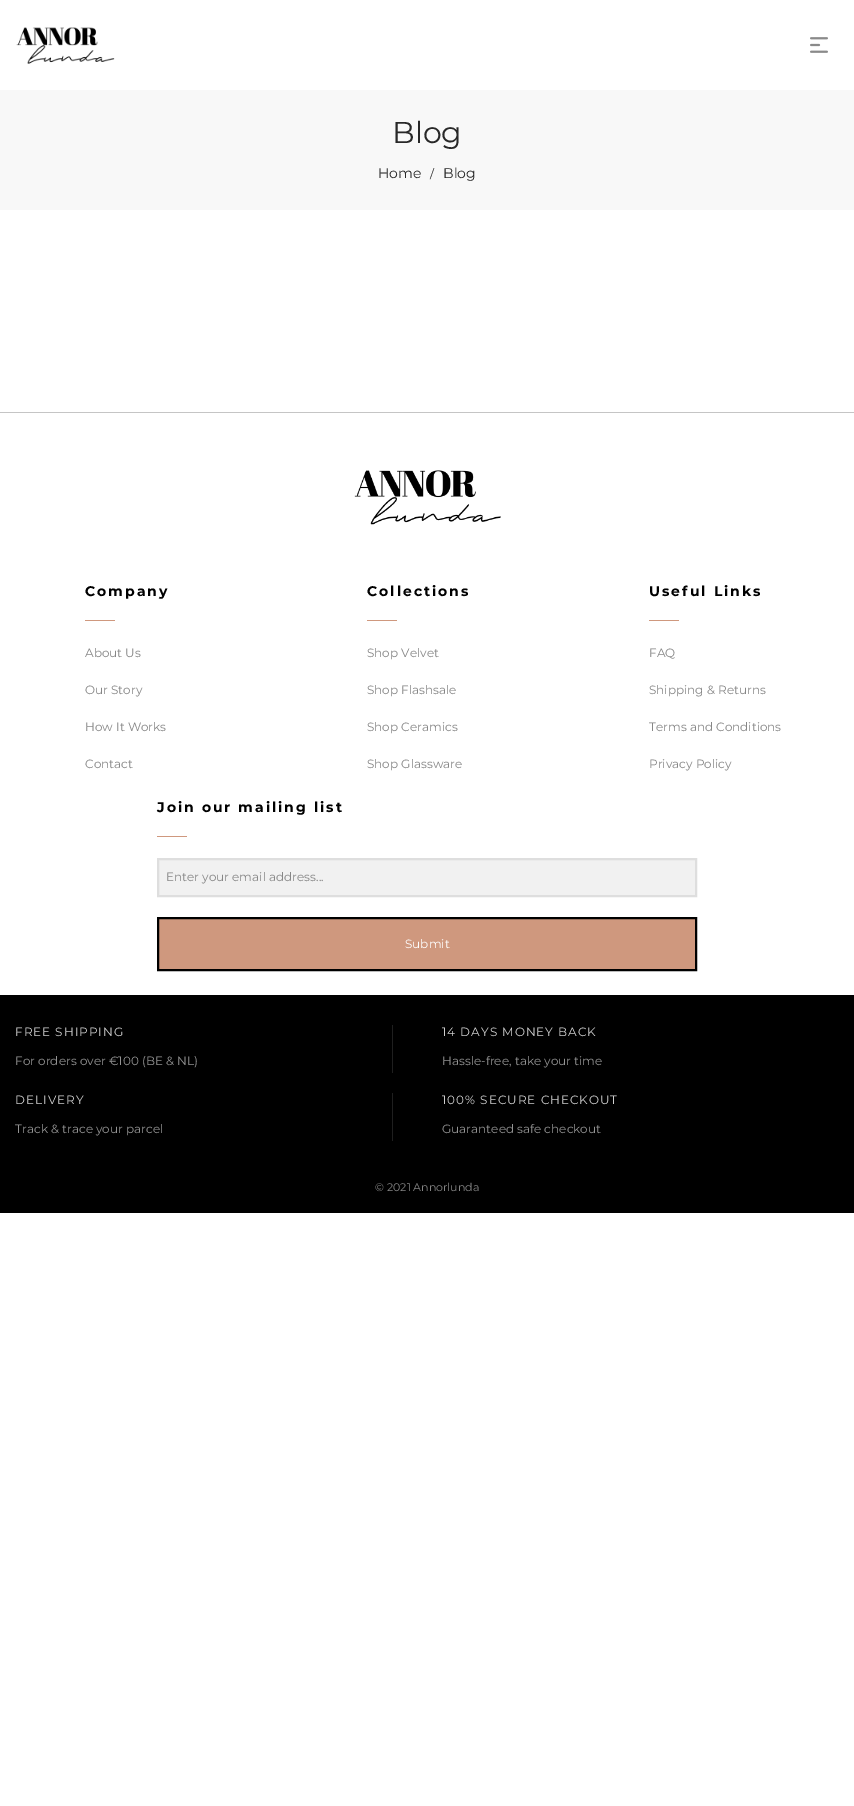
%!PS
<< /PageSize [854 1806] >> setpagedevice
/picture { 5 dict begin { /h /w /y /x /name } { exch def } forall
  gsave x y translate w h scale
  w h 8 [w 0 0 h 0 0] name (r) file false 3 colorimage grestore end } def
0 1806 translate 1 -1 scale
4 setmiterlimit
1 setgray
0 0 854 1806 rectfill
(img1.rgb) 16 27 99 37 picture
(img2.rgb) 810 37 18 16 picture
0.973 setgray
0 90 854 120 rectfill
/Montserrat-Regular [30 0 0 -30 0 0] selectfont
0.157 setgray
392 143 moveto (Blog) show
/Montserrat-Regular [14 0 0 -14 0 0] selectfont
378 178 moveto (Home) show
/Montserrat-Regular [12 0 0 -12 0 0] selectfont
430 178 moveto (/) show
/Montserrat-Regular [14 0 0 -14 0 0] selectfont
443 178 moveto (Blog) show
0.773 setgray
0 412 854 1 rectfill
(img3.rgb) 354 470 147 55 picture
/Montserrat-Bold [14 0 0 -14 0 0] selectfont
0 setgray
85 596 moveto 2 0 (Company) ashow
0.812 0.596 0.494 setrgbcolor
85 620 30 1 rectfill
/Montserrat-Regular [12 0 0 -12 0 0] selectfont
0.525 setgray
85 657 moveto (About Us) show
85 694 moveto (Our Story) show
85 731 moveto (How It Works) show
85 768 moveto (Contact) show
/Montserrat-Bold [14 0 0 -14 0 0] selectfont
0 setgray
367 596 moveto 2 0 (Collections) ashow
0.812 0.596 0.494 setrgbcolor
367 620 30 1 rectfill
/Montserrat-Regular [12 0 0 -12 0 0] selectfont
0.525 setgray
367 657 moveto (Shop Velvet) show
367 694 moveto (Shop Flashsale) show
367 731 moveto (Shop Ceramics) show
367 768 moveto (Shop Glassware) show
/Montserrat-Bold [14 0 0 -14 0 0] selectfont
0 setgray
649 596 moveto 2 0 (Useful Links) ashow
0.812 0.596 0.494 setrgbcolor
649 620 30 1 rectfill
/Montserrat-Regular [12 0 0 -12 0 0] selectfont
0.525 setgray
649 657 moveto (FAQ) show
649 694 moveto (Shipping & Returns) show
649 731 moveto (Terms and Conditions) show
649 768 moveto (Privacy Policy) show
/Montserrat-Bold [14 0 0 -14 0 0] selectfont
0 setgray
157 812 moveto 2 0 (Join our mailing list) ashow
0.812 0.596 0.494 setrgbcolor
157 836 30 1 rectfill
0.945 setgray
newpath 158 859 moveto 696 859 lineto 696 896 lineto 158 896 lineto closepath gsave fill grestore
0.871 setgray
2 setlinewidth
stroke
/Montserrat-Regular [12 0 0 -12 0 0] selectfont
0.525 setgray
166 881 moveto (Enter your email address...) show
0.812 0.596 0.494 setrgbcolor
newpath 158 918 moveto 696 918 lineto 696 970 lineto 158 970 lineto closepath gsave fill grestore
0 setgray
stroke
1 setgray
405 948 moveto (Submit) show
0 setgray
0 995 854 218 rectfill
0.816 setgray
15 1036 moveto 1 0 (FREE SHIPPING) ashow
0.58 setgray
15 1065 moveto (For orders over €100 \(BE & NL\)) show
0.122 setgray
392 1025 1 48 rectfill
0.816 setgray
442 1036 moveto 1 0 (14 DAYS MONEY BACK) ashow
0.58 setgray
442 1065 moveto (Hassle-free, take your time) show
0.816 setgray
15 1104 moveto 1 0 (DELIVERY) ashow
0.58 setgray
15 1133 moveto (Track & trace your parcel) show
0.122 setgray
392 1093 1 48 rectfill
0.816 setgray
442 1104 moveto 1 0 (100% SECURE CHECKOUT) ashow
0.58 setgray
442 1133 moveto (Guaranteed safe checkout) show
/Montserrat-Regular [11 0 0 -11 0 0] selectfont
0.525 setgray
375 1191 moveto (© 2021 Annorlunda) show
showpage
